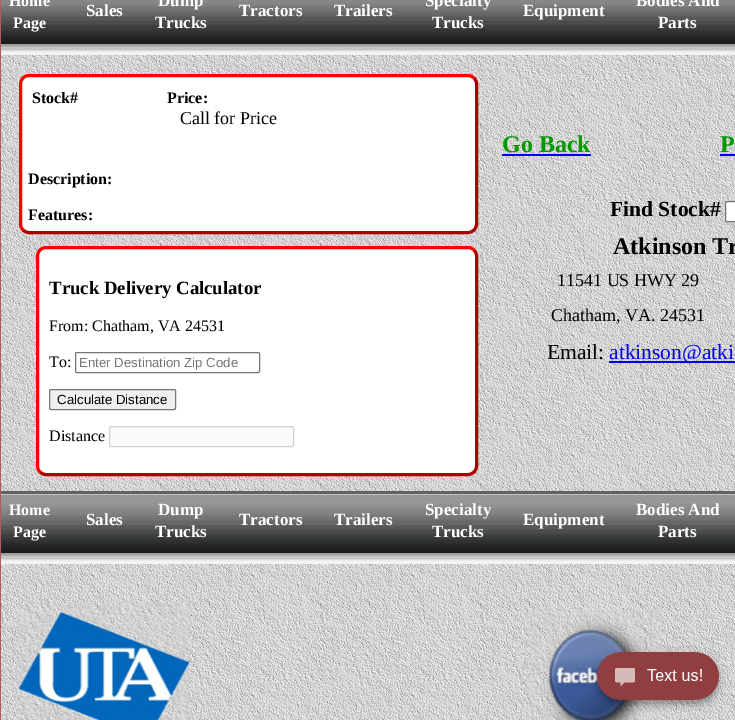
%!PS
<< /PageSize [735 720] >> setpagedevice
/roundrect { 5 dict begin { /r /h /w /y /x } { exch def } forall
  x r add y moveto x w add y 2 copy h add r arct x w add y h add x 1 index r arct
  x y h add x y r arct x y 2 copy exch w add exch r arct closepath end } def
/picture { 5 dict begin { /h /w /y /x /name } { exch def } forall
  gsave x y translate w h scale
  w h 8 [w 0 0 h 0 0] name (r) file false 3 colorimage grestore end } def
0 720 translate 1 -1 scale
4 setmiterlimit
1 setgray
0 0 735 720 rectfill
(img1.rgb) 0 0 1 720 picture
(img2.rgb) 1 55 734 665 picture
(img3.rgb) 1 0 734 55 picture
/LiberationSerif-Bold [16 0 0 -16 0 0] selectfont
9 6 moveto (Home) show
13 28 moveto (Page) show
/LiberationSerif-Bold [17 0 0 -17 0 0] selectfont
86 16 moveto (Sales) show
158 6 moveto (Dump) show
155 28 moveto (Trucks) show
239 16 moveto (Tractors) show
334 16 moveto (Trailers) show
425 6 moveto (Specialty) show
432 28 moveto (Trucks) show
523 16 moveto (Equipment) show
636 6 moveto (Bodies And) show
658 28 moveto (Parts) show
19 74 459 160 10 roundrect fill
0.667 0 0 setrgbcolor
3 setlinewidth
newpath 474 78 moveto 475.5 79.5 476.5 81.5 476.5 84 curveto 476.5 224 lineto 476.5 226.5 475.5 228.5 474 230 curveto 472.5 231.5 470.5 232.5 468 232.5 curveto 29 232.5 lineto 26.5 232.5 24.5 231.5 23 230 curveto stroke
1 0 0 setrgbcolor
newpath 23 230 moveto 21.5 228.5 20.5 226.5 20.5 224 curveto 20.5 84 lineto 20.5 81.5 21.5 79.5 23 78 curveto 24.5 76.5 26.5 75.5 29 75.5 curveto 468 75.5 lineto 470.5 75.5 472.5 76.5 474 78 curveto stroke
/LiberationSerif-Bold [16 0 0 -16 0 0] selectfont
0 setgray
32 103 moveto (Stock#) show
167 103 moveto (Price:) show
/LiberationSerif-Regular [18 0 0 -18 0 0] selectfont
180 124 moveto (Call for Price) show
/LiberationSerif-Bold [16 0 0 -16 0 0] selectfont
28 184 moveto (Description:) show
28 220 moveto (Features:) show
1 setgray
36 246 442 230 10 roundrect fill
0.667 0 0 setrgbcolor
newpath 474 250 moveto 475.5 251.5 476.5 253.5 476.5 256 curveto 476.5 466 lineto 476.5 468.5 475.5 470.5 474 472 curveto 472.5 473.5 470.5 474.5 468 474.5 curveto 46 474.5 lineto 43.5 474.5 41.5 473.5 40 472 curveto stroke
1 0 0 setrgbcolor
newpath 40 472 moveto 38.5 470.5 37.5 468.5 37.5 466 curveto 37.5 256 lineto 37.5 253.5 38.5 251.5 40 250 curveto 41.5 248.5 43.5 247.5 46 247.5 curveto 468 247.5 lineto 470.5 247.5 472.5 248.5 474 250 curveto stroke
/LiberationSerif-Bold [18.75 0 0 -18.75 0 0] selectfont
0 setgray
49 294 moveto (Truck Delivery Calculator) show
/LiberationSerif-Regular [16 0 0 -16 0 0] selectfont
49 331 moveto (From: Chatham, VA 24531) show
49 367 moveto (To:) show
0.463 setgray
1 setlinewidth
75.5 352.5 184 20 1.5 roundrect stroke
/LiberationSans-Regular [13.25 0 0 -13.25 0 0] selectfont
0.459 setgray
79 367 moveto (Enter Destination Zip Code) show
0.937 setgray
49.5 389.5 126 20 1.5 roundrect gsave fill grestore
0.463 setgray
stroke
0 setgray
57 404 moveto (Calculate Distance) show
/LiberationSerif-Regular [16 0 0 -16 0 0] selectfont
49 441 moveto (Distance) show
0.98 setgray
109.5 426.5 184 20 1.5 roundrect gsave fill grestore
0.824 setgray
stroke
/LiberationSerif-Bold [24 0 0 -24 0 0] selectfont
0 0.6 0 setrgbcolor
502 152 moveto (Go Back) show
0 0 0.933 setrgbcolor
502 154 89 2 rectfill
0 0.6 0 setrgbcolor
720 152 moveto (P) show
0 0 0.933 setrgbcolor
720 154 15 2 rectfill
/LiberationSerif-Bold [21.5 0 0 -21.5 0 0] selectfont
0 setgray
610 216 moveto (Find Stock#) show
1 setgray
725.5 201.5 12 20 1.5 roundrect gsave fill grestore
0.463 setgray
stroke
/LiberationSerif-Bold [24 0 0 -24 0 0] selectfont
0 setgray
613 254 moveto (Atkinson Tr) show
/LiberationSerif-Regular [18 0 0 -18 0 0] selectfont
557 286 moveto (11541 US HWY 29) show
551 321 moveto (Chatham, VA. 24531) show
/LiberationSerif-Regular [21.5 0 0 -21.5 0 0] selectfont
547 359 moveto (Email:) show
0 0 0.933 setrgbcolor
609 361 126 2 rectfill
609 359 moveto (atkinson@atki) show
(img4.rgb) 1 491 734 73 picture
/LiberationSerif-Bold [16 0 0 -16 0 0] selectfont
1 setgray
9 515 moveto (Home) show
13 537 moveto (Page) show
/LiberationSerif-Bold [17 0 0 -17 0 0] selectfont
86 525 moveto (Sales) show
158 515 moveto (Dump) show
155 537 moveto (Trucks) show
239 525 moveto (Tractors) show
334 525 moveto (Trailers) show
425 515 moveto (Specialty) show
432 537 moveto (Trucks) show
523 525 moveto (Equipment) show
636 515 moveto (Bodies And) show
658 537 moveto (Parts) show
(img5.rgb) 17 603 174 117 picture
(img6.rgb) 523 608 140 112 picture
(img7.rgb) 590 645 136 67 picture
showpage
